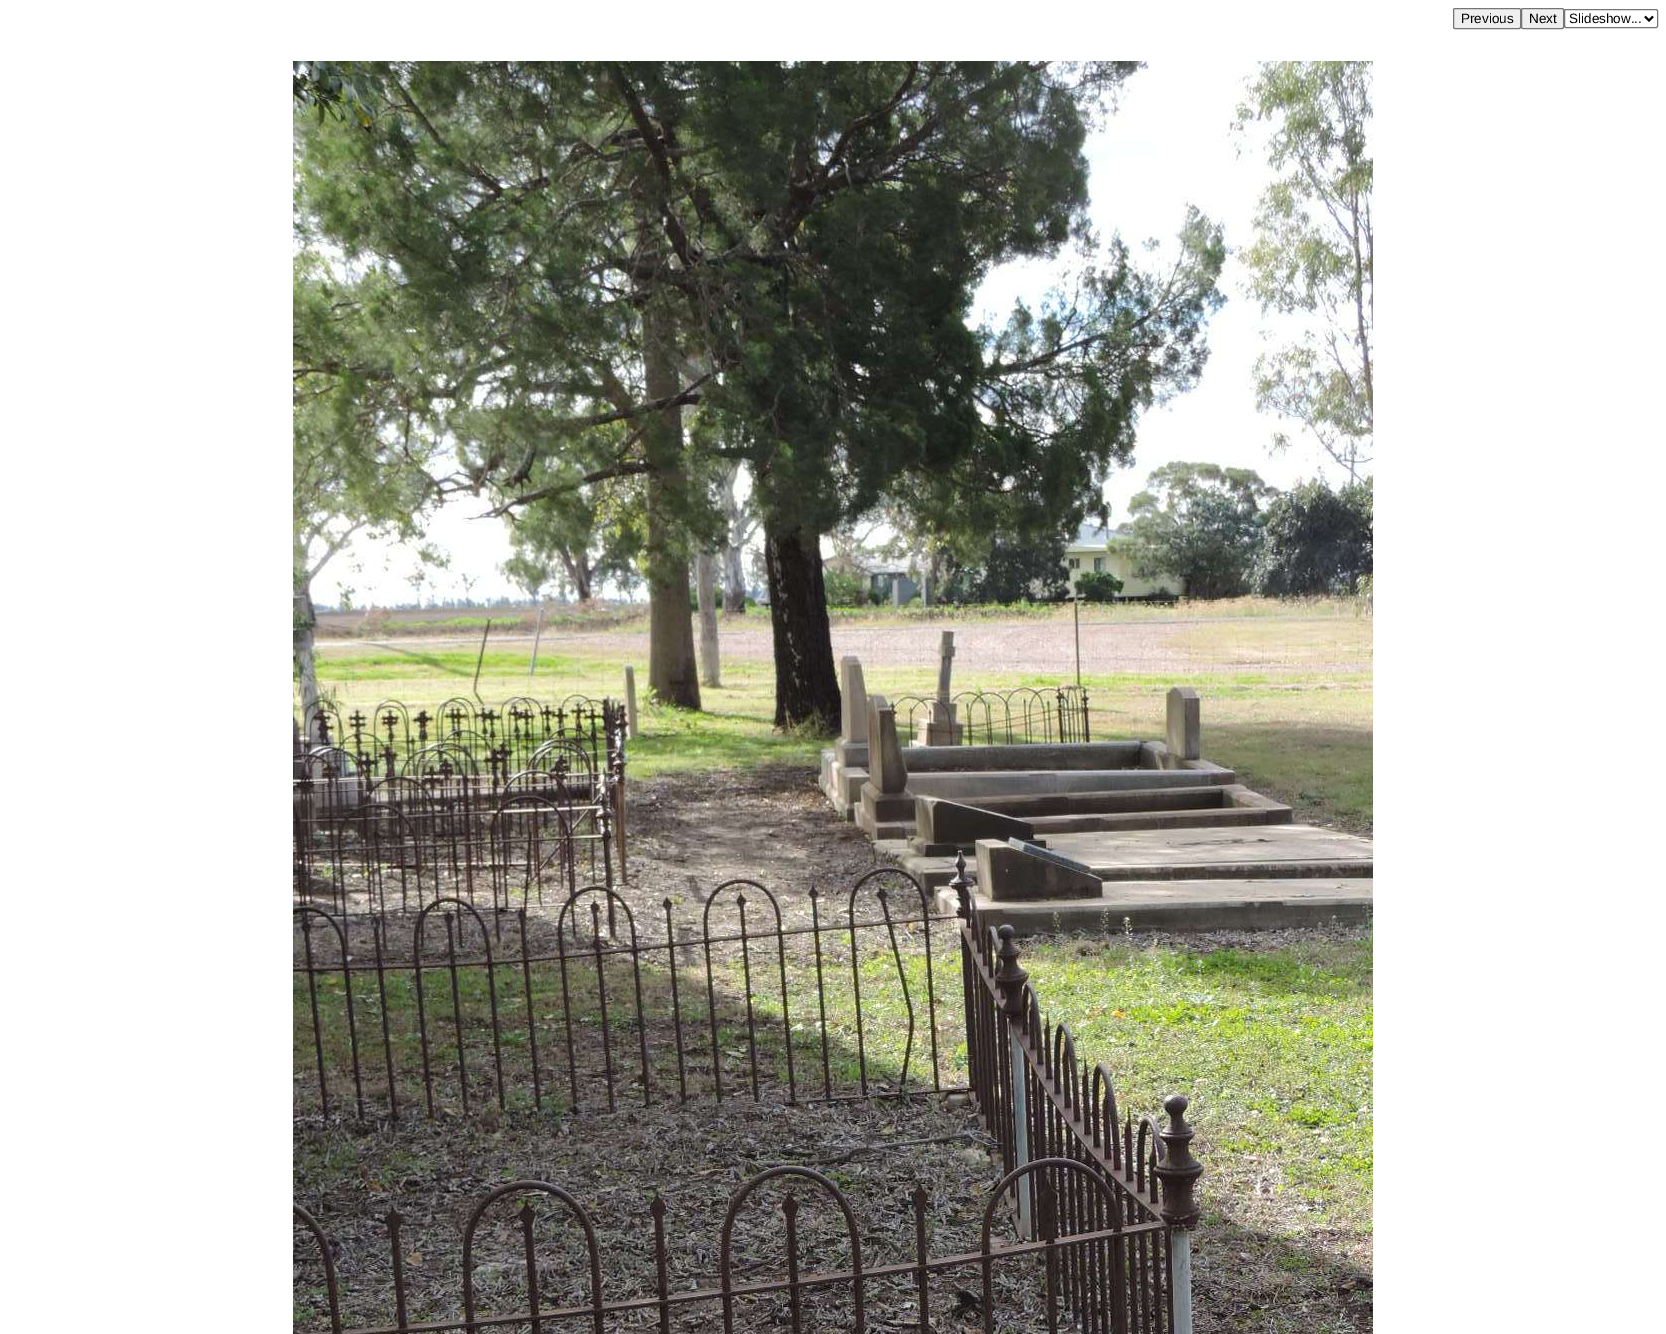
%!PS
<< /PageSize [1666 1334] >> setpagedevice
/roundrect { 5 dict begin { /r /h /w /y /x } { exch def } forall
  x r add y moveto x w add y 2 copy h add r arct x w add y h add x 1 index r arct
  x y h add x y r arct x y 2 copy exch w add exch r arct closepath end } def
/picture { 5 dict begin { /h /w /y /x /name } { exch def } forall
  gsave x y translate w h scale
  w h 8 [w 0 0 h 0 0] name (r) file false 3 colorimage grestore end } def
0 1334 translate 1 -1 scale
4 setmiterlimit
1 setgray
0 0 1666 1334 rectfill
0.937 setgray
1453.5 8.5 67 20 1.5 roundrect gsave fill grestore
0.463 setgray
stroke
/LiberationSans-Regular [13.5 0 0 -13.5 0 0] selectfont
0 setgray
1461 23 moveto (Previous) show
0.937 setgray
1521.5 8.5 42 20 1.5 roundrect gsave fill grestore
0.463 setgray
stroke
0 setgray
1529 23 moveto (Next) show
0.463 setgray
1564.5 9.5 93 18 1.5 roundrect stroke
0 setgray
2 setlinewidth
newpath 1645 16.5 moveto 1649 20.5 lineto 1653 16.5 lineto stroke
1569 23 moveto (Slideshow...) show
(img1.rgb) 293 61 1080 1273 picture
showpage
